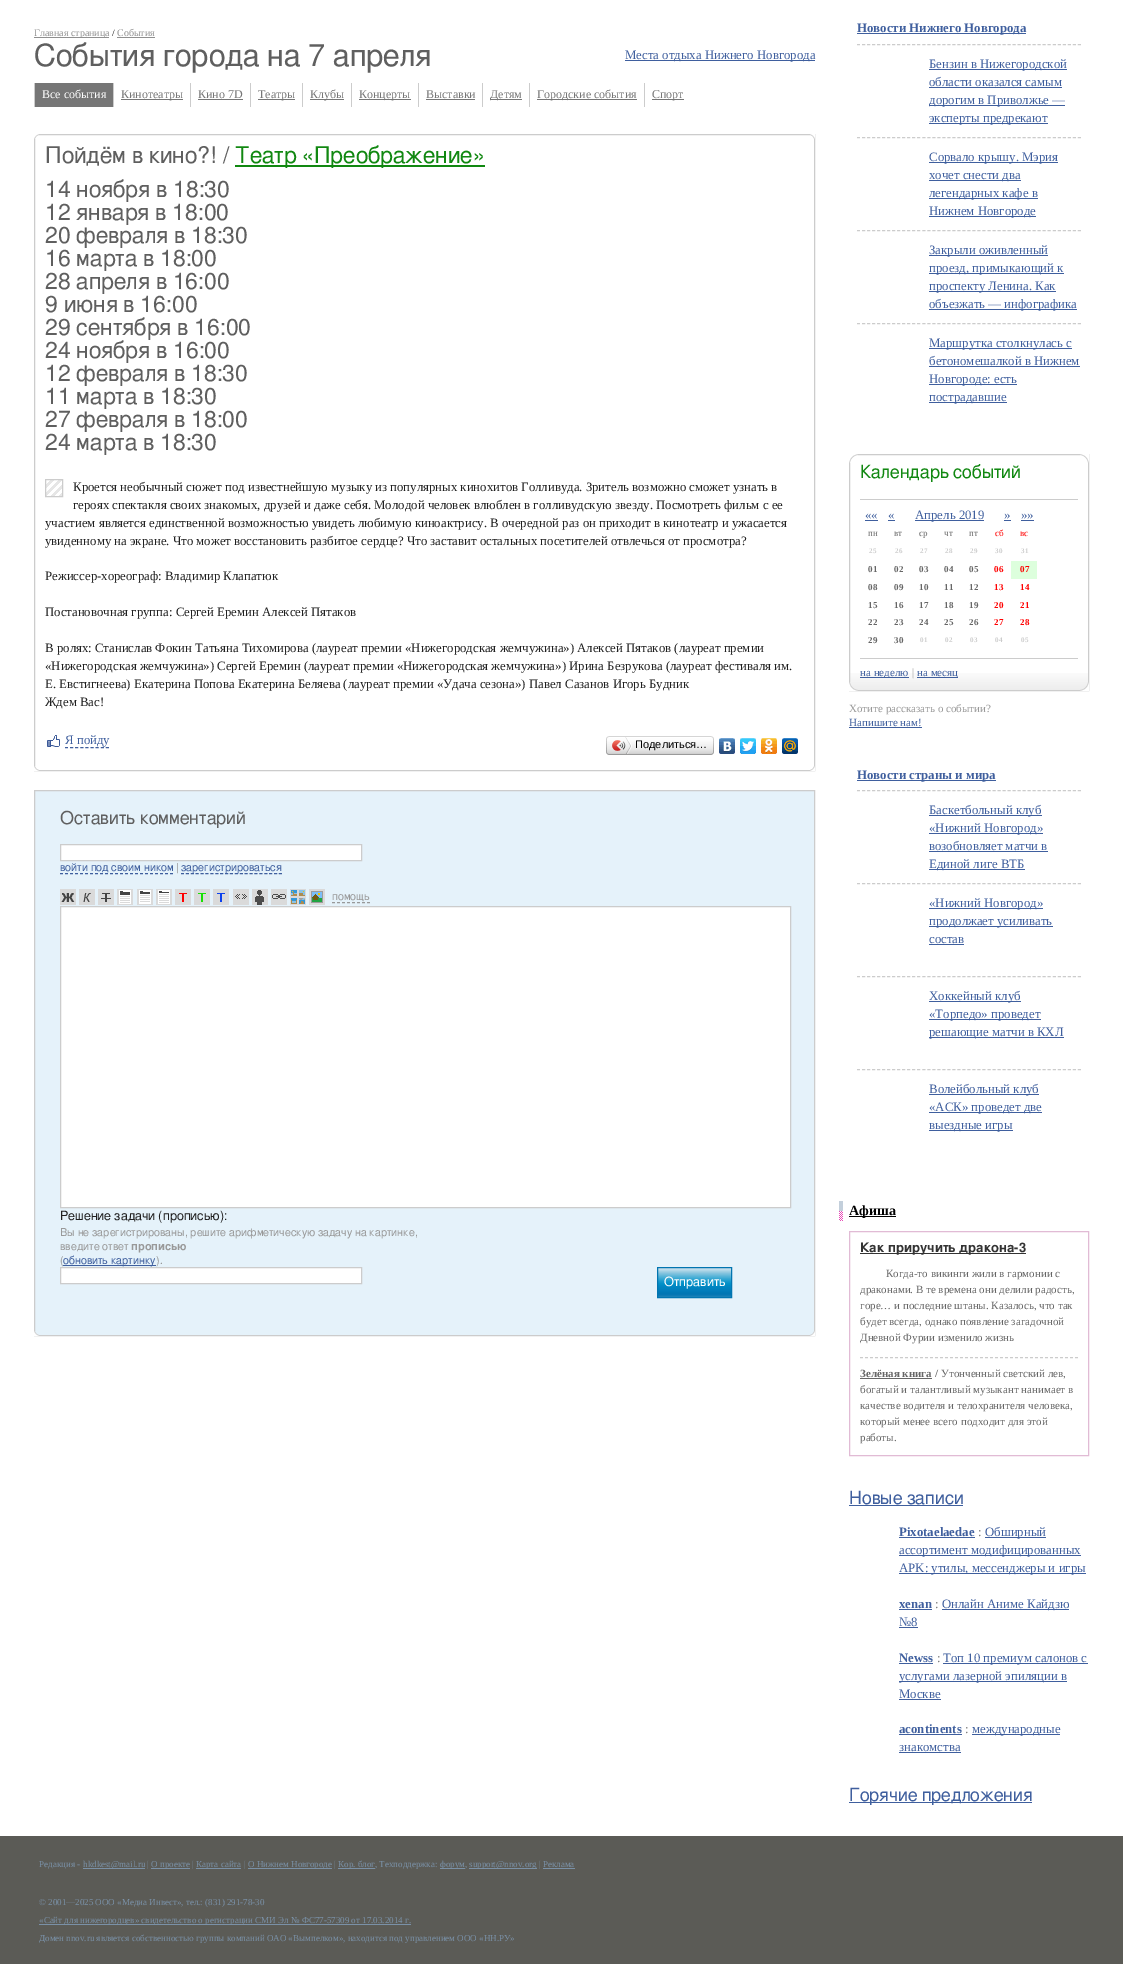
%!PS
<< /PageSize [1123 1964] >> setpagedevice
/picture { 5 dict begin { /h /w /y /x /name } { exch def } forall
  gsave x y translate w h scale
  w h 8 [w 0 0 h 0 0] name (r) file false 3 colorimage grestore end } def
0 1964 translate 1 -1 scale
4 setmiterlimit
1 setgray
0 0 1123 1964 rectfill
0.561 setgray
34 37 75 1 rectfill
/LiberationSerif-Regular [10 0 0 -10 0 0] selectfont
34 36 moveto (Главная страница) show
0.125 setgray
112 36 moveto (/) show
0.561 setgray
117 36 moveto (События) show
117 37 38 1 rectfill
/FreeSans-Regular [30.75 0 0 -30.75 0 0] selectfont
0.373 setgray
34 66 moveto (События города на 7 апреля) show
0.247 0.373 0.62 setrgbcolor
625 60 190 1 rectfill
/LiberationSerif-Regular [12.8 0 0 -12.8 0 0] selectfont
625 59 moveto (Места отдыха Нижнего Новгорода) show
0.463 setgray
35 83 78 24 rectfill
0.8 setgray
34 83 1 24 rectfill
/LiberationSerif-Regular [12 0 0 -12 0 0] selectfont
1 setgray
42 98 moveto (Все события) show
0.8 setgray
113 83 1 24 rectfill
0.463 setgray
121 99 62 1 rectfill
121 98 moveto (Кинотеатры) show
0.8 setgray
190 83 1 24 rectfill
0.463 setgray
198 98 moveto (Кино 7D) show
198 99 45 1 rectfill
0.8 setgray
250 83 1 24 rectfill
0.463 setgray
258 99 37 1 rectfill
258 98 moveto (Театры) show
0.8 setgray
302 83 1 24 rectfill
0.463 setgray
310 99 34 1 rectfill
310 98 moveto (Клубы) show
0.8 setgray
351 83 1 24 rectfill
0.463 setgray
359 99 52 1 rectfill
359 98 moveto (Концерты) show
0.8 setgray
418 83 1 24 rectfill
0.463 setgray
426 98 moveto (Выставки) show
426 99 49 1 rectfill
0.8 setgray
482 83 1 24 rectfill
0.463 setgray
490 99 32 1 rectfill
490 98 moveto (Детям) show
0.8 setgray
529 83 1 24 rectfill
0.463 setgray
537 99 100 1 rectfill
537 98 moveto (Городские события) show
0.8 setgray
644 83 1 24 rectfill
0.463 setgray
652 99 32 1 rectfill
652 98 moveto (Спорт) show
0.8 setgray
34.5 134.5 780 636 rectstroke
(img1.rgb) 34 134 5 5 picture
(img2.rgb) 810 134 5 5 picture
/FreeSans-Regular [23 0 0 -23 0 0] selectfont
0.373 setgray
45 163 moveto (Пойдём в кино?! /) show
0.067 0.533 0.067 setrgbcolor
235 165 250 2 rectfill
235 163 moveto (Театр «Преображение») show
0.373 setgray
45 197 moveto (14 ноября в 18:30) show
45 220 moveto (12 января в 18:00) show
45 243 moveto (20 февраля в 18:30) show
45 266 moveto (16 марта в 18:00) show
45 289 moveto (28 апреля в 16:00) show
45 312 moveto (9 июня в 16:00) show
45 335 moveto (29 сентября в 16:00) show
45 358 moveto (24 ноября в 16:00) show
45 381 moveto (12 февраля в 18:30) show
45 404 moveto (11 марта в 18:30) show
45 427 moveto (27 февраля в 18:00) show
45 450 moveto (24 марта в 18:30) show
(img3.rgb) 46 480 16 16 picture
0.8 setgray
45.5 479.5 17 17 rectstroke
/LiberationSerif-Regular [12.8 0 0 -12.8 0 0] selectfont
0.125 setgray
73 491 moveto (Кроется необычный сюжет под известнейшую музыку из популярных кинохитов Голливуда. Зритель возможно сможет узнать в) show
73 509 moveto (героях спектакля своих знакомых, друзей и даже себя. Молодой человек влюблен в голливудскую звезду. Посмотреть фильм с ее) show
45 527 moveto (участием является единственной возможностью увидеть любимую киноактрису. В очередной раз он приходит в кинотеатр и ужасается) show
45 545 moveto (увиденному на экране. Что может восстановить разбитое сердце? Что заставит остальных посетителей отвлечься от просмотра?) show
45 580 moveto (Режиссер-хореограф: Владимир Клапатюк) show
45 616 moveto (Постановочная группа: Сергей Еремин Алексей Пятаков) show
45 652 moveto (В ролях: Станислав Фокин Татьяна Тихомирова \(лауреат премии «Нижегородская жемчужина»\) Алексей Пятаков \(лауреат премии) show
45 670 moveto («Нижегородская жемчужина»\) Сергей Еремин \(лауреат премии «Нижегородская жемчужина»\) Ирина Безрукова \(лауреат фестиваля им.) show
45 688 moveto (Е. Евстигнеева\) Екатерина Попова Екатерина Беляева \(лауреат премии «Удача сезона»\) Павел Сазанов Игорь Будник) show
45 706 moveto (Ждем Вас!) show
(img4.rgb) 47 735 13 12 picture
0.247 0.373 0.62 setrgbcolor
65 744 moveto (Я пойду) show
[3 2.12] 0 setdash
newpath 65 747.5 moveto 109 747.5 lineto stroke
(img5.rgb) 609 736 102 19 picture
(img6.rgb) 606 736 3 19 picture
(img7.rgb) 612 737 20 17 picture
/LiberationSans-Regular [11 0 0 -11 0 0] selectfont
0 setgray
635 748 moveto (Поделиться…) show
(img8.rgb) 711 736 3 19 picture
(img9.rgb) 719 738 16 16 picture
(img10.rgb) 740 738 16 16 picture
(img11.rgb) 761 738 16 16 picture
(img12.rgb) 782 738 16 16 picture
(img13.rgb) 34 766 5 5 picture
(img14.rgb) 810 766 5 5 picture
0.898 0.949 0.98 setrgbcolor
newpath 34.5 790.5 moveto 814.5 790.5 lineto 814.5 1335.5 lineto 34.5 1335.5 lineto closepath gsave fill grestore
0.8 setgray
[] 0 setdash
stroke
/FreeSans-Regular [18 0 0 -18 0 0] selectfont
0.373 setgray
60 824 moveto (Оставить комментарий) show
1 setgray
newpath 60.5 844.5 moveto 361.5 844.5 lineto 361.5 860.5 lineto 60.5 860.5 lineto closepath gsave fill grestore
0.8 setgray
stroke
/FreeSans-Regular [11 0 0 -11 0 0] selectfont
0.247 0.373 0.62 setrgbcolor
60 871 moveto (войти под своим ником) show
[3 2] 0 setdash
newpath 60 873.5 moveto 173 873.5 lineto stroke
0.6 setgray
176 871 moveto (|) show
0.247 0.373 0.62 setrgbcolor
[3 1.9] 0 setdash
newpath 181 873.5 moveto 282 873.5 lineto stroke
181 871 moveto (зарегистрироваться) show
(img15.rgb) 60 889 16 16 picture
(img16.rgb) 79 889 16 16 picture
(img17.rgb) 98 889 16 16 picture
(img18.rgb) 117 889 16 16 picture
(img19.rgb) 137 889 16 16 picture
(img20.rgb) 156 889 16 16 picture
(img21.rgb) 175 889 16 16 picture
(img22.rgb) 194 889 16 16 picture
(img23.rgb) 213 889 16 16 picture
(img24.rgb) 233 889 16 16 picture
(img25.rgb) 252 889 16 16 picture
(img26.rgb) 271 889 16 16 picture
(img27.rgb) 290 889 16 16 picture
(img28.rgb) 309 889 16 16 picture
0.6 setgray
332 900 moveto (помощь) show
[3 2] 0 setdash
newpath 332 902.5 moveto 370 902.5 lineto stroke
1 setgray
newpath 60.5 906.5 moveto 790.5 906.5 lineto 790.5 1207.5 lineto 60.5 1207.5 lineto closepath gsave fill grestore
0.8 setgray
[] 0 setdash
stroke
/FreeSans-Regular [12.8 0 0 -12.8 0 0] selectfont
0.125 setgray
60 1220 moveto (Решение задачи \(прописью\):) show
/FreeSans-Regular [11 0 0 -11 0 0] selectfont
0.6 setgray
60 1236 moveto (Вы не зарегистрированы, решите арифметическую задачу на картинке,) show
60 1250 moveto (введите ответ) show
/FreeSans-SemiBold [11 0 0 -11 0 0] selectfont
131 1250 moveto (прописью) show
/FreeSans-Regular [11 0 0 -11 0 0] selectfont
60 1264 moveto (\() show
0.247 0.373 0.62 setrgbcolor
63 1265 93 1 rectfill
63 1264 moveto (обновить картинку) show
0.6 setgray
156 1264 moveto (\).) show
1 setgray
newpath 60.5 1267.5 moveto 361.5 1267.5 lineto 361.5 1283.5 lineto 60.5 1283.5 lineto closepath gsave fill grestore
0.8 setgray
stroke
(img29.rgb) 658 1268 73 29 picture
0.004 0.459 0.69 setrgbcolor
657.5 1267.5 74 30 rectstroke
/FreeSans-Regular [12.8 0 0 -12.8 0 0] selectfont
1 setgray
664 1286 moveto (Отправить) show
(img30.rgb) 34 1331 5 5 picture
(img31.rgb) 810 1331 5 5 picture
0.247 0.373 0.62 setrgbcolor
857 33 169 1 rectfill
/LiberationSerif-Bold [12.8 0 0 -12.8 0 0] selectfont
857 32 moveto (Новости Нижнего Новгорода) show
0.8 setgray
[3 2.02] 0 setdash
newpath 857 44.5 moveto 1081 44.5 lineto stroke
0.247 0.373 0.62 setrgbcolor
929 69 138 1 rectfill
/LiberationSerif-Regular [12.8 0 0 -12.8 0 0] selectfont
929 68 moveto (Бензин в Нижегородской) show
929 86 moveto (области оказался самым) show
929 87 133 1 rectfill
929 105 136 1 rectfill
929 104 moveto (дорогим в Приволжье —) show
929 123 119 1 rectfill
929 122 moveto (эксперты предрекают) show
0.8 setgray
newpath 857 137.5 moveto 1081 137.5 lineto stroke
0.247 0.373 0.62 setrgbcolor
929 162 129 1 rectfill
929 161 moveto (Сорвало крышу. Мэрия) show
929 180 92 1 rectfill
929 179 moveto (хочет снести два) show
929 198 109 1 rectfill
929 197 moveto (легендарных кафе в) show
929 216 107 1 rectfill
929 215 moveto (Нижнем Новгороде) show
0.8 setgray
newpath 857 230.5 moveto 1081 230.5 lineto stroke
0.247 0.373 0.62 setrgbcolor
929 255 119 1 rectfill
929 254 moveto (Закрыли оживленный) show
929 273 135 1 rectfill
929 272 moveto (проезд, примыкающий к) show
929 291 127 1 rectfill
929 290 moveto (проспекту Ленина. Как) show
929 309 148 1 rectfill
929 308 moveto (объезжать — инфографика) show
0.8 setgray
newpath 857 323.5 moveto 1081 323.5 lineto stroke
0.247 0.373 0.62 setrgbcolor
929 348 143 1 rectfill
929 347 moveto (Маршрутка столкнулась с) show
929 365 moveto (бетономешалкой в Нижнем) show
929 366 151 1 rectfill
929 384 88 1 rectfill
929 383 moveto (Новгороде: есть) show
929 402 78 1 rectfill
929 401 moveto (пострадавшие) show
(img32.rgb) 850 673 238 17 picture
0.8 setgray
[] 0 setdash
849.5 454.5 239 236 rectstroke
(img33.rgb) 849 454 9 9 picture
(img34.rgb) 1080 454 9 9 picture
/FreeSans-Regular [18 0 0 -18 0 0] selectfont
0.067 0.533 0.067 setrgbcolor
860 478 moveto (Календарь событий) show
0.8 setgray
860 499 218 1 rectfill
/LiberationSerif-Regular [12.8 0 0 -12.8 0 0] selectfont
0.247 0.373 0.62 setrgbcolor
865 519 moveto (««) show
865 520 13 1 rectfill
888 519 moveto («) show
888 520 7 1 rectfill
915 520 69 1 rectfill
915 519 moveto (Апрель 2019) show
1004 519 moveto (») show
1004 520 7 1 rectfill
1021 519 moveto (»») show
1021 520 13 1 rectfill
/LiberationSerif-Regular [9 0 0 -9 0 0] selectfont
0.4 setgray
868 536 moveto (пн) show
894 536 moveto (вт) show
919 536 moveto (ср) show
944 536 moveto (чт) show
969 536 moveto (пт) show
1 0 0 setrgbcolor
995 536 moveto (сб) show
1020 536 moveto (вс) show
/LiberationSerif-Bold [7 0 0 -7 0 0] selectfont
0.8 setgray
869 553 moveto (25) show
895 553 moveto (26) show
920 553 moveto (27) show
945 553 moveto (28) show
970 553 moveto (29) show
995 553 moveto (30) show
1021 553 moveto (31) show
/LiberationSerif-Bold [9 0 0 -9 0 0] selectfont
0.4 setgray
868 572 moveto (01) show
894 572 moveto (02) show
919 572 moveto (03) show
944 572 moveto (04) show
969 572 moveto (05) show
1 0 0 setrgbcolor
994 572 moveto (06) show
0.867 1 0.867 setrgbcolor
1011 561 26 18 rectfill
1 0 0 setrgbcolor
1020 572 moveto (07) show
0.4 setgray
868 590 moveto (08) show
894 590 moveto (09) show
919 590 moveto (10) show
944 590 moveto (11) show
969 590 moveto (12) show
1 0 0 setrgbcolor
994 590 moveto (13) show
1020 590 moveto (14) show
0.4 setgray
868 608 moveto (15) show
894 608 moveto (16) show
919 608 moveto (17) show
944 608 moveto (18) show
969 608 moveto (19) show
1 0 0 setrgbcolor
994 608 moveto (20) show
1020 608 moveto (21) show
0.4 setgray
868 625 moveto (22) show
894 625 moveto (23) show
919 625 moveto (24) show
944 625 moveto (25) show
969 625 moveto (26) show
1 0 0 setrgbcolor
994 625 moveto (27) show
1020 625 moveto (28) show
0.4 setgray
868 643 moveto (29) show
894 643 moveto (30) show
/LiberationSerif-Bold [7 0 0 -7 0 0] selectfont
0.8 setgray
920 642 moveto (01) show
945 642 moveto (02) show
970 642 moveto (03) show
995 642 moveto (04) show
1021 642 moveto (05) show
860 658 218 1 rectfill
0.247 0.373 0.62 setrgbcolor
860 677 49 1 rectfill
/LiberationSerif-Regular [11 0 0 -11 0 0] selectfont
860 676 moveto (на неделю) show
0.6 setgray
912 676 moveto (|) show
0.247 0.373 0.62 setrgbcolor
917 677 41 1 rectfill
917 676 moveto (на месяц) show
(img35.rgb) 849 682 9 9 picture
(img36.rgb) 1080 682 9 9 picture
0.6 setgray
849 712 moveto (Хотите рассказать о событии?) show
0.247 0.373 0.62 setrgbcolor
849 726 moveto (Напишите нам!) show
849 727 73 1 rectfill
857 780 139 1 rectfill
/LiberationSerif-Bold [12.8 0 0 -12.8 0 0] selectfont
857 779 moveto (Новости страны и мира) show
0.8 setgray
[3 2.02] 0 setdash
newpath 857 790.5 moveto 1081 790.5 lineto stroke
0.247 0.373 0.62 setrgbcolor
929 815 113 1 rectfill
/LiberationSerif-Regular [12.8 0 0 -12.8 0 0] selectfont
929 814 moveto (Баскетбольный клуб) show
929 833 114 1 rectfill
929 832 moveto («Нижний Новгород») show
929 850 moveto (возобновляет матчи в) show
929 851 119 1 rectfill
929 869 96 1 rectfill
929 868 moveto (Единой лиге ВТБ) show
0.8 setgray
newpath 857 883.5 moveto 1081 883.5 lineto stroke
0.247 0.373 0.62 setrgbcolor
929 908 114 1 rectfill
929 907 moveto («Нижний Новгород») show
929 926 124 1 rectfill
929 925 moveto (продолжает усиливать) show
929 943 moveto (состав) show
929 944 35 1 rectfill
0.8 setgray
newpath 857 976.5 moveto 1081 976.5 lineto stroke
0.247 0.373 0.62 setrgbcolor
929 1001 92 1 rectfill
929 1000 moveto (Хоккейный клуб) show
929 1019 112 1 rectfill
929 1018 moveto («Торпедо» проведет) show
929 1037 135 1 rectfill
929 1036 moveto (решающие матчи в КХЛ) show
0.8 setgray
newpath 857 1069.5 moveto 1081 1069.5 lineto stroke
0.247 0.373 0.62 setrgbcolor
929 1094 110 1 rectfill
929 1093 moveto (Волейбольный клуб) show
929 1112 113 1 rectfill
929 1111 moveto («АСК» проведет две) show
929 1130 84 1 rectfill
929 1129 moveto (выездные игры) show
0.91 0.298 0.718 setrgbcolor
839 1211 4 10 rectfill
(img37.rgb) 839 1201 4 20 picture
0 setgray
849 1216 47 1 rectfill
/LiberationSerif-Bold [14 0 0 -14 0 0] selectfont
849 1215 moveto (Афиша) show
0.882 0.733 0.835 setrgbcolor
[] 0 setdash
849.5 1231.5 239 224 rectstroke
0.2 setgray
860 1253 166 1 rectfill
/FreeSans-SemiBold [13 0 0 -13 0 0] selectfont
860 1252 moveto (Как приручить дракона-3) show
/LiberationSerif-Regular [11 0 0 -11 0 0] selectfont
0.4 setgray
886 1277 moveto (Когда-то викинги жили в гармонии с) show
860 1293 moveto (драконами. В те времена они делили радость,) show
860 1309 moveto (горе… и последние штаны. Казалось, что так) show
860 1325 moveto (будет всегда, однако появление загадочной) show
860 1341 moveto (Дневной Фурии изменило жизнь) show
0.8 setgray
[3 2] 0 setdash
newpath 860 1357.5 moveto 1078 1357.5 lineto stroke
/LiberationSerif-Bold [11 0 0 -11 0 0] selectfont
0.4 setgray
860 1377 moveto (Зелёная книга /) show
860 1378 72 1 rectfill
/LiberationSerif-Regular [11 0 0 -11 0 0] selectfont
941 1377 moveto (Утонченный светский лев,) show
860 1393 moveto (богатый и талантливый музыкант нанимает в) show
860 1409 moveto (качестве водителя и телохранителя человека,) show
860 1425 moveto (который менее всего подходит для этой) show
860 1441 moveto (работы.) show
/FreeSans-Regular [18 0 0 -18 0 0] selectfont
0.247 0.373 0.62 setrgbcolor
849 1504 moveto (Новые записи) show
849 1505 114 1 rectfill
/LiberationSerif-Bold [12.8 0 0 -12.8 0 0] selectfont
899 1536 moveto (Pixotaelaedae) show
899 1537 76 1 rectfill
/LiberationSerif-Regular [12.8 0 0 -12.8 0 0] selectfont
0.502 setgray
978 1536 moveto (:) show
0.247 0.373 0.62 setrgbcolor
985 1537 61 1 rectfill
985 1536 moveto (Обширный) show
899 1555 182 1 rectfill
899 1554 moveto (ассортимент модифицированных) show
899 1573 187 1 rectfill
899 1572 moveto (APK: утилы, мессенджеры и игры) show
/LiberationSerif-Bold [12.8 0 0 -12.8 0 0] selectfont
899 1608 moveto (xenan) show
899 1609 33 1 rectfill
/LiberationSerif-Regular [12.8 0 0 -12.8 0 0] selectfont
0.502 setgray
935 1608 moveto (:) show
0.247 0.373 0.62 setrgbcolor
942 1609 127 1 rectfill
942 1608 moveto (Онлайн Аниме Кайдзю) show
899 1626 moveto (№8) show
899 1627 19 1 rectfill
/LiberationSerif-Bold [12.8 0 0 -12.8 0 0] selectfont
899 1662 moveto (Newss) show
899 1663 34 1 rectfill
/LiberationSerif-Regular [12.8 0 0 -12.8 0 0] selectfont
0.502 setgray
937 1662 moveto (:) show
0.247 0.373 0.62 setrgbcolor
943 1663 145 1 rectfill
943 1662 moveto (Топ 10 премиум салонов с) show
899 1681 168 1 rectfill
899 1680 moveto (услугами лазерной эпиляции в) show
899 1698 moveto (Москве) show
899 1699 42 1 rectfill
/LiberationSerif-Bold [12.8 0 0 -12.8 0 0] selectfont
899 1733 moveto (acontinents) show
899 1734 63 1 rectfill
/LiberationSerif-Regular [12.8 0 0 -12.8 0 0] selectfont
0.502 setgray
965 1733 moveto (:) show
0.247 0.373 0.62 setrgbcolor
972 1734 88 1 rectfill
972 1733 moveto (международные) show
899 1751 moveto (знакомства) show
899 1752 62 1 rectfill
849 1802 183 1 rectfill
/FreeSans-Regular [18 0 0 -18 0 0] selectfont
849 1801 moveto (Горячие предложения) show
0.357 0.357 0.337 setrgbcolor
0 1836 1123 128 rectfill
/LiberationSerif-Regular [9 0 0 -9 0 0] selectfont
0.478 0.569 0.655 setrgbcolor
39 1867 moveto (Редакция -) show
83 1868 62 1 rectfill
83 1867 moveto (hkdkest@mail.ru |) show
151 1868 39 1 rectfill
151 1867 moveto (О проекте |) show
196 1868 45 1 rectfill
196 1867 moveto (Карта сайта |) show
248 1868 84 1 rectfill
248 1867 moveto (О Нижнем Новгороде |) show
338 1868 37 1 rectfill
338 1867 moveto (Кор. блог, Техподдержка:) show
440 1868 25 1 rectfill
440 1867 moveto (форум,) show
469 1868 68 1 rectfill
469 1867 moveto (support@nnov.org | Реклама) show
543 1868 32 1 rectfill
39 1905 moveto (© 2001—2025 ООО «Медиа Инвест», тел.: \(831\) 291-78-30) show
39 1924 372 1 rectfill
39 1923 moveto («Сайт для нижегородцев» свидетельство о регистрации СМИ Эл № ФС77-57309 от 17.03.2014 г.) show
39 1941 moveto (Домен nnov.ru является собственностью группы компаний ОАО «Вымпелком», находится под управлением ООО «НН.РУ») show
showpage
